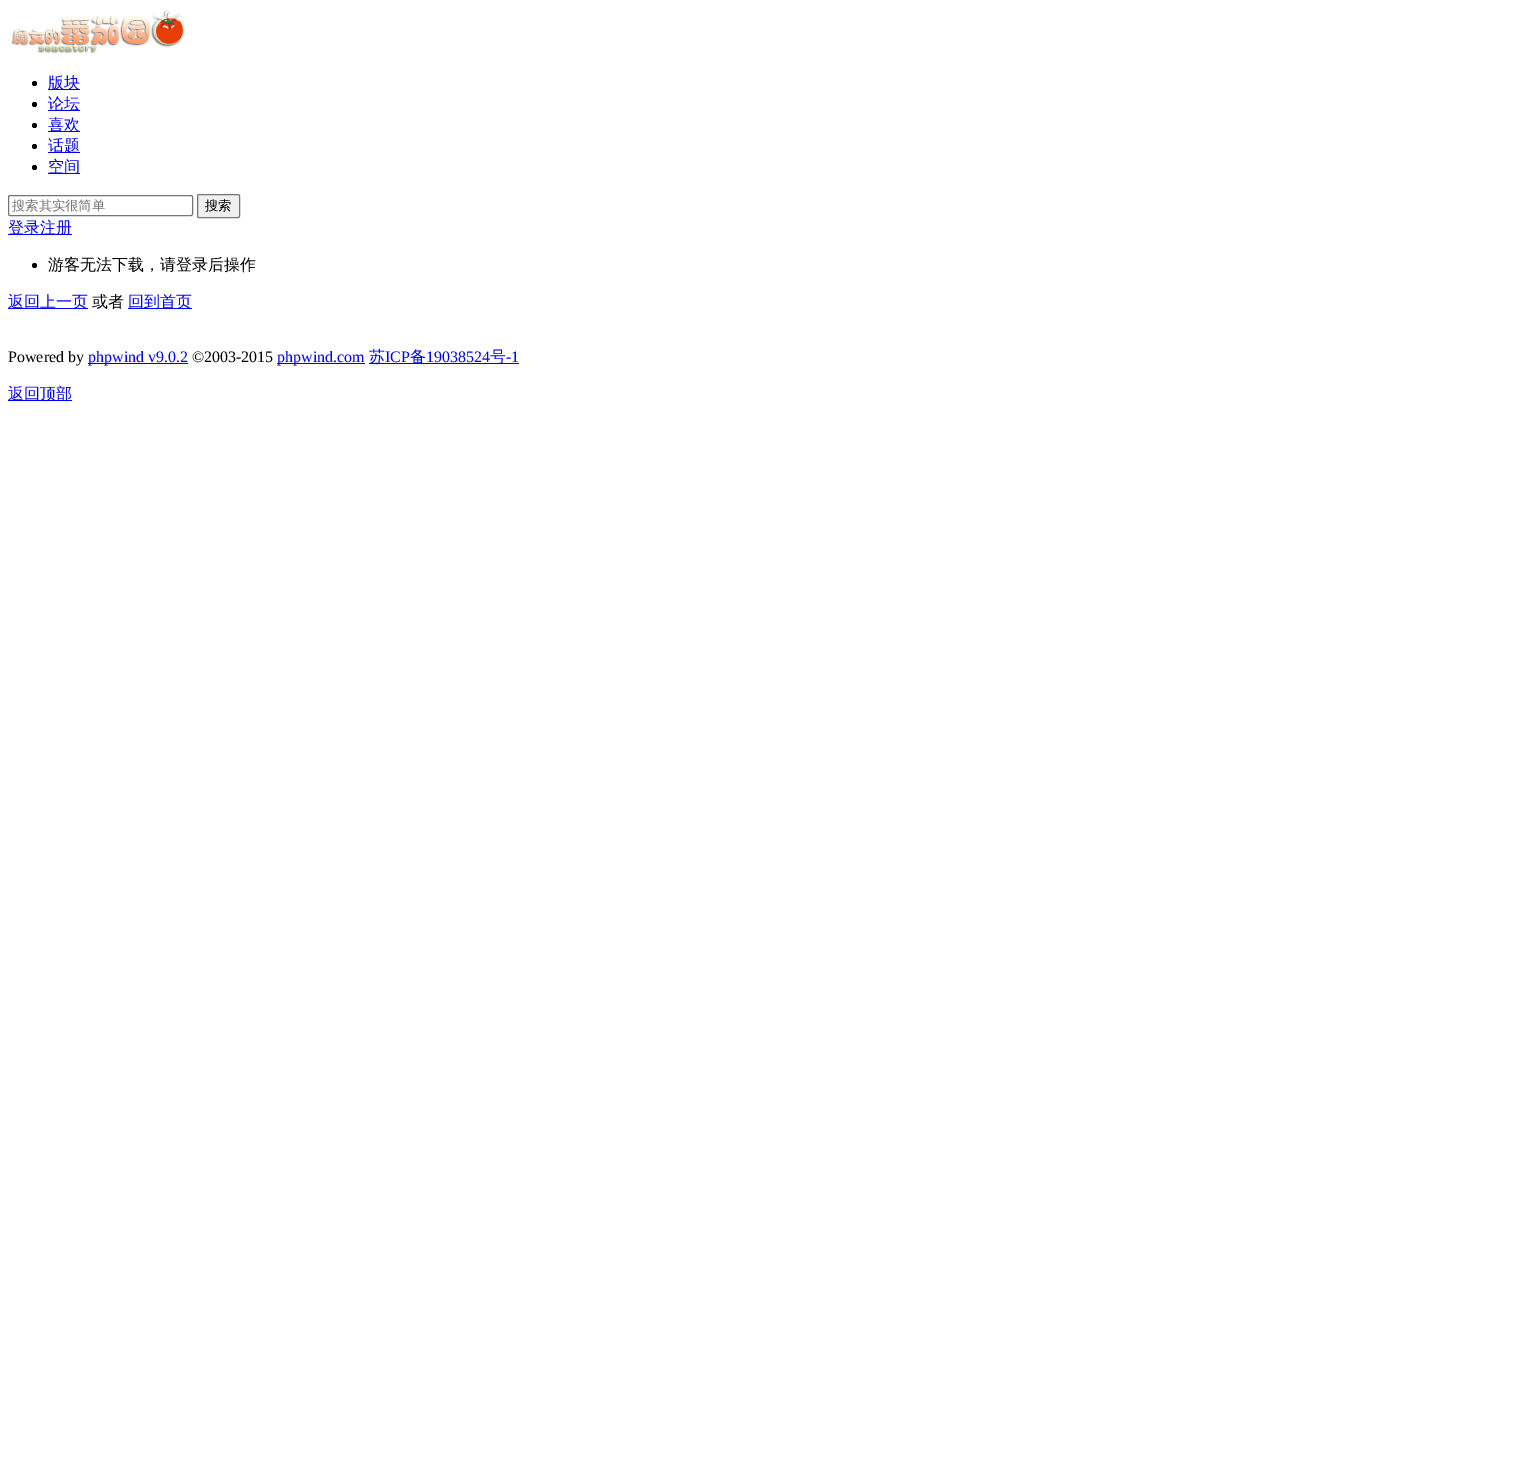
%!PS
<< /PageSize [1527 1458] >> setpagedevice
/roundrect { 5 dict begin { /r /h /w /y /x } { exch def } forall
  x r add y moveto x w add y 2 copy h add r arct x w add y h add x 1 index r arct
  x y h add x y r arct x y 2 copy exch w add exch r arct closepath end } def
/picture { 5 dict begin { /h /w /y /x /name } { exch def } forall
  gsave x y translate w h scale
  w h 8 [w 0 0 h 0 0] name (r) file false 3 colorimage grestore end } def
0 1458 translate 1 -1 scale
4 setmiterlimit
1 setgray
0 0 1527 1458 rectfill
(img1.rgb) 11 9 173 44 picture
0 setgray
newpath 34.5 83.5 2.5 0 360 arc closepath fill
0 0 0.933 setrgbcolor
48 89 32 1 rectfill
/WenQuanYiZenHei-Medium [16 0 0 -16 0 0] selectfont
48 88 moveto (版块) show
0 setgray
newpath 34.5 104.5 2.5 0 360 arc closepath fill
0 0 0.933 setrgbcolor
48 110 32 1 rectfill
48 109 moveto (论坛) show
0 setgray
newpath 34.5 125.5 2.5 0 360 arc closepath fill
0 0 0.933 setrgbcolor
48 131 32 1 rectfill
48 130 moveto (喜欢) show
0 setgray
newpath 34.5 146.5 2.5 0 360 arc closepath fill
0 0 0.933 setrgbcolor
48 152 32 1 rectfill
48 151 moveto (话题) show
0 setgray
newpath 34.5 167.5 2.5 0 360 arc closepath fill
0 0 0.933 setrgbcolor
48 173 32 1 rectfill
48 172 moveto (空间) show
0.463 setgray
8.5 195.5 184 20 1.5 roundrect stroke
/WenQuanYiZenHei-Medium [13.25 0 0 -13.25 0 0] selectfont
0.459 setgray
12 210 moveto (搜索其实很简单) show
0.937 setgray
197.5 194.5 42 23 1.5 roundrect gsave fill grestore
0.463 setgray
stroke
0 setgray
205 210 moveto (搜索) show
0 0 0.933 setrgbcolor
8 234 64 1 rectfill
/WenQuanYiZenHei-Medium [16 0 0 -16 0 0] selectfont
8 233 moveto (登录注册) show
0 setgray
newpath 34.5 265.5 2.5 0 360 arc closepath fill
48 270 moveto (游客无法下载，请登录后操作) show
0 0 0.933 setrgbcolor
8 308 80 1 rectfill
8 307 moveto (返回上一页) show
0 setgray
92 307 moveto (或者) show
0 0 0.933 setrgbcolor
128 308 64 1 rectfill
128 307 moveto (回到首页) show
/LiberationSerif-Regular [16 0 0 -16 0 0] selectfont
0 setgray
8 362 moveto (Powered by) show
0 0 0.933 setrgbcolor
88 363 100 1 rectfill
88 362 moveto (phpwind v9.0.2) show
0 setgray
192 362 moveto (©2003-2015) show
0 0 0.933 setrgbcolor
277 363 88 1 rectfill
277 362 moveto (phpwind.com) show
369 363 150 1 rectfill
/WenQuanYiZenHei-Medium [16 0 0 -16 0 0] selectfont
369 362 moveto (苏) show
/LiberationSerif-Regular [16 0 0 -16 0 0] selectfont
385 362 moveto (ICP) show
/WenQuanYiZenHei-Medium [16 0 0 -16 0 0] selectfont
410 362 moveto (备) show
/LiberationSerif-Regular [16 0 0 -16 0 0] selectfont
426 362 moveto (19038524) show
/WenQuanYiZenHei-Medium [16 0 0 -16 0 0] selectfont
490 362 moveto (号) show
/LiberationSerif-Regular [16 0 0 -16 0 0] selectfont
506 362 moveto (-1) show
8 400 64 1 rectfill
/WenQuanYiZenHei-Medium [16 0 0 -16 0 0] selectfont
8 399 moveto (返回顶部) show
showpage
